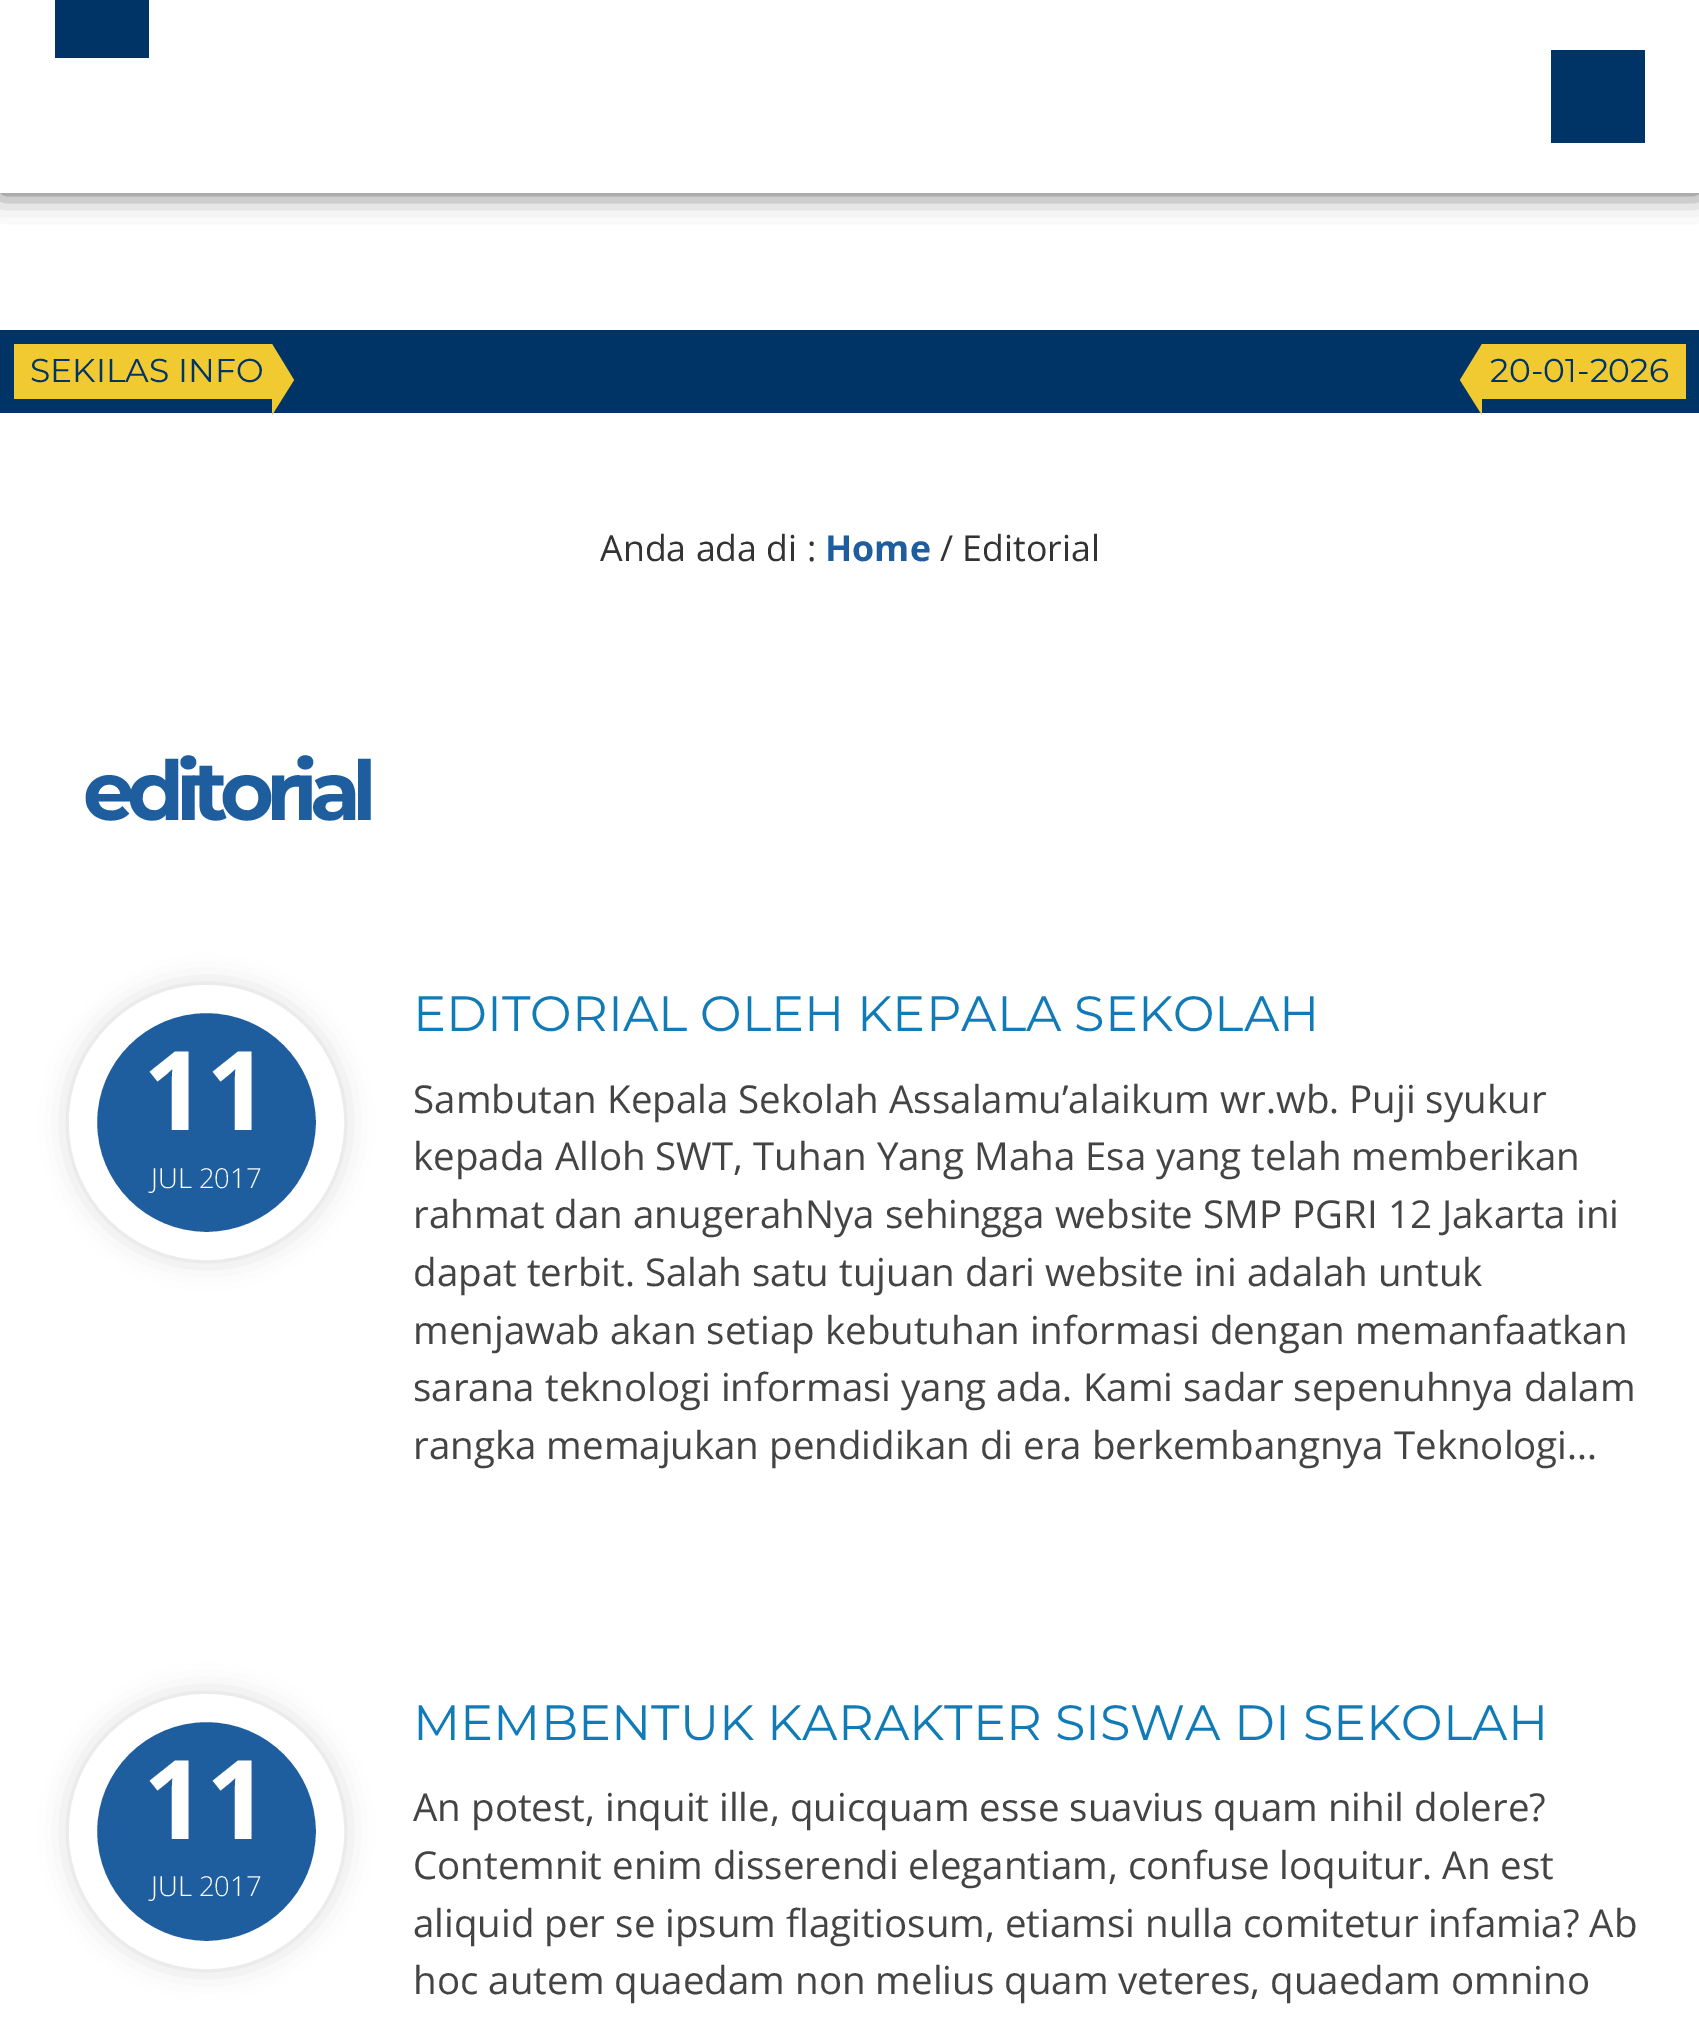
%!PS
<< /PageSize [1699 2019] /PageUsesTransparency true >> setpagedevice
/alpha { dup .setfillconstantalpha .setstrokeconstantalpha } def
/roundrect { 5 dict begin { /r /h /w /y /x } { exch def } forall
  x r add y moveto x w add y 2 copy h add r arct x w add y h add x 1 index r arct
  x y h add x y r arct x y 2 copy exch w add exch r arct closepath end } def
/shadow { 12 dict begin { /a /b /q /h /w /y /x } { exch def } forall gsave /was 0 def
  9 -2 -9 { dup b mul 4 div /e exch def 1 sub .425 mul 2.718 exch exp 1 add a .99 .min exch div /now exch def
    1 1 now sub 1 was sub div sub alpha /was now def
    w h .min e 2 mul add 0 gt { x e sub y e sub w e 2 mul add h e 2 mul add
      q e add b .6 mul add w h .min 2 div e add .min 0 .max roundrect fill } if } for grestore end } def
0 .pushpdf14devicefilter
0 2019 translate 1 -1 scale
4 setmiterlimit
1 setgray
0 0 1699 2019 rectfill
0.333 setgray
0 0 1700 193 0 14 1 shadow
1 setgray
0 0 1699 193 rectfill
0 0.2 0.4 setrgbcolor
55 0 94 58 rectfill
1551 50 94 93 rectfill
0 330 1699 83 rectfill
0.941 0.792 0.188 setrgbcolor
14 344 258 55 rectfill
/Montserrat-Regular [33 0 0 -33 0 0] selectfont
0 0.2 0.4 setrgbcolor
30 382 moveto (SEKILAS INFO) show
0.941 0.792 0.188 setrgbcolor
newpath 272 415 moveto 272 344 lineto 294 380 lineto closepath fill
1482 344 204 55 rectfill
newpath 1482 344 moveto 1482 415 lineto 1460 380 lineto closepath fill
0 0.2 0.4 setrgbcolor
1490 382 moveto (20-01-2026) show
/OpenSans-Regular [35.75 0 0 -35.75 0 0] selectfont
0.2 setgray
600 561 moveto (Anda ada di :) show
/OpenSans-Bold [35.75 0 0 -35.75 0 0] selectfont
0.122 0.369 0.62 setrgbcolor
825 561 moveto (Home) show
/OpenSans-Regular [35.75 0 0 -35.75 0 0] selectfont
0.2 setgray
940 561 moveto (/ Editorial) show
/Montserrat-Bold [82.5 0 0 -82.5 0 0] selectfont
0.122 0.369 0.62 setrgbcolor
83 820 moveto -8.25 0 (editorial) ashow
0.843 setgray
69 985 275 275 137.5 14 1 shadow
0.122 0.369 0.62 setrgbcolor
newpath 206.5 1122.5 123.5 0 360 arc closepath gsave fill grestore
1 setgray
28 setlinewidth
stroke
/OpenSans-Bold [110 0 0 -110 0 0] selectfont
143 1130 moveto (11) show
/OpenSans-Light [27.5 0 0 -27.5 0 0] selectfont
151 1188 moveto (JUL 2017) show
/Montserrat-Regular [49.5 0 0 -49.5 0 0] selectfont
0.063 0.482 0.714 setrgbcolor
413 1031 moveto (EDITORIAL OLEH KEPALA SEKOLAH) show
/OpenSans-Regular [38.5 0 0 -38.5 0 0] selectfont
0.267 setgray
413 1113 moveto (Sambutan Kepala Sekolah Assalamu’alaikum wr.wb. Puji syukur) show
413 1170 moveto (kepada Alloh SWT, Tuhan Yang Maha Esa yang telah memberikan) show
413 1228 moveto (rahmat dan anugerahNya sehingga website SMP PGRI 12 Jakarta ini) show
413 1286 moveto (dapat terbit. Salah satu tujuan dari website ini adalah untuk) show
413 1344 moveto (menjawab akan setiap kebutuhan informasi dengan memanfaatkan) show
413 1401 moveto (sarana teknologi informasi yang ada. Kami sadar sepenuhnya dalam) show
413 1459 moveto (rangka memajukan pendidikan di era berkembangnya Teknologi...) show
0.843 setgray
69 1694 275 275 137.5 14 1 shadow
0.122 0.369 0.62 setrgbcolor
newpath 206.5 1831.5 123.5 0 360 arc closepath gsave fill grestore
1 setgray
stroke
/OpenSans-Bold [110 0 0 -110 0 0] selectfont
143 1839 moveto (11) show
/OpenSans-Light [27.5 0 0 -27.5 0 0] selectfont
151 1896 moveto (JUL 2017) show
/Montserrat-Regular [49.5 0 0 -49.5 0 0] selectfont
0.063 0.482 0.714 setrgbcolor
413 1740 moveto (MEMBENTUK KARAKTER SISWA DI SEKOLAH) show
/OpenSans-Regular [38.5 0 0 -38.5 0 0] selectfont
0.267 setgray
413 1821 moveto (An potest, inquit ille, quicquam esse suavius quam nihil dolere?) show
413 1879 moveto (Contemnit enim disserendi elegantiam, confuse loquitur. An est) show
413 1937 moveto (aliquid per se ipsum flagitiosum, etiamsi nulla comitetur infamia? Ab) show
413 1994 moveto (hoc autem quaedam non melius quam veteres, quaedam omnino) show
.poppdf14devicefilter showpage
